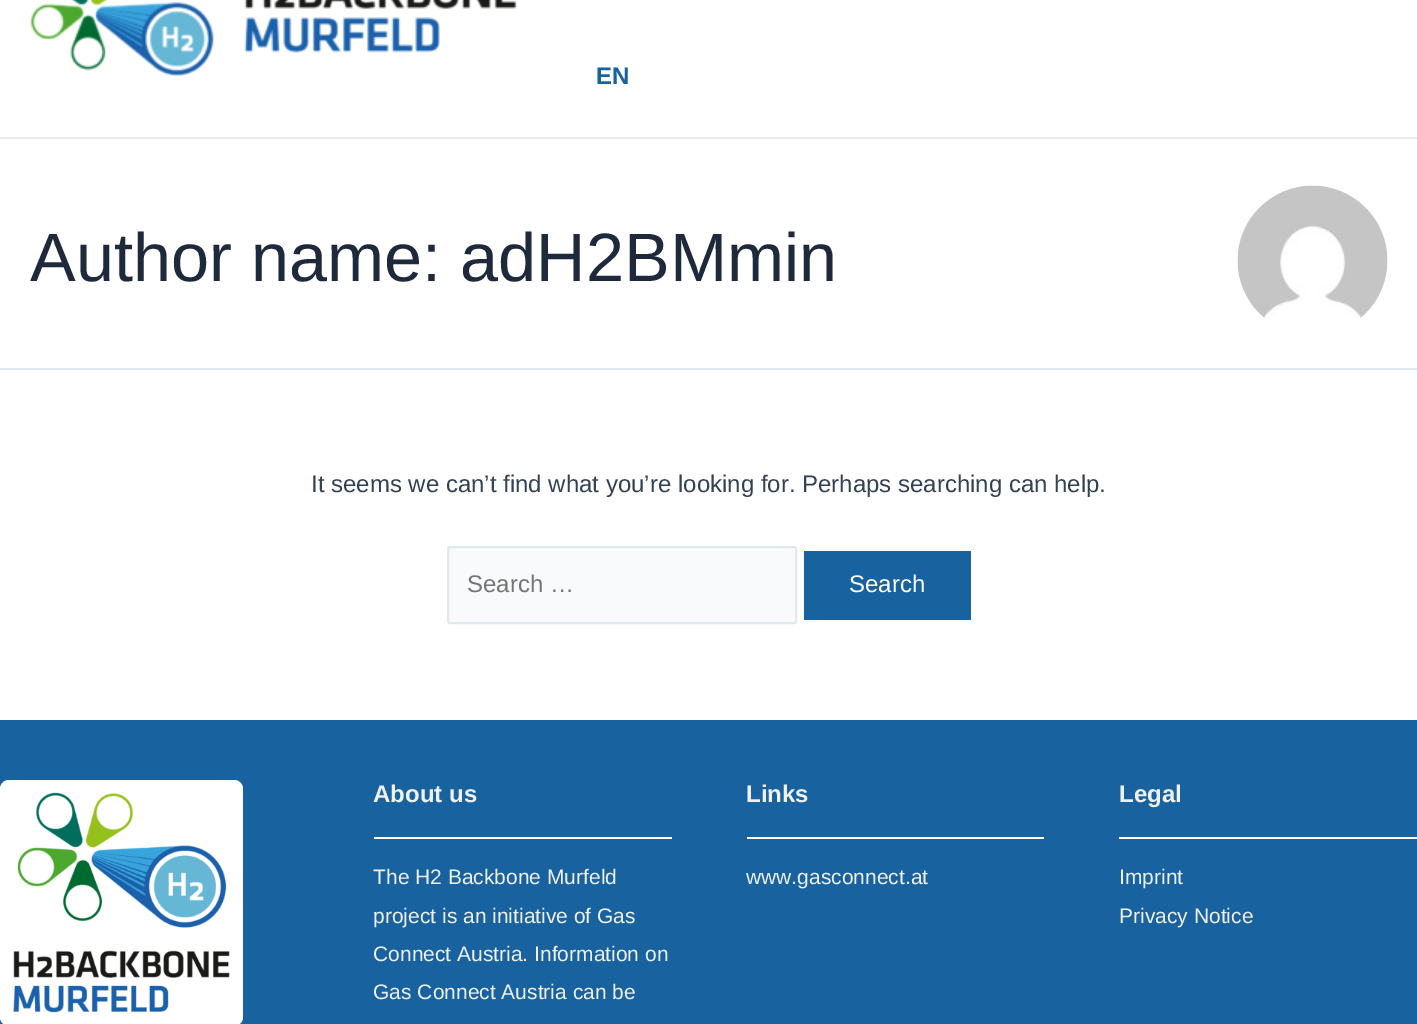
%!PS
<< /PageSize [1417 1024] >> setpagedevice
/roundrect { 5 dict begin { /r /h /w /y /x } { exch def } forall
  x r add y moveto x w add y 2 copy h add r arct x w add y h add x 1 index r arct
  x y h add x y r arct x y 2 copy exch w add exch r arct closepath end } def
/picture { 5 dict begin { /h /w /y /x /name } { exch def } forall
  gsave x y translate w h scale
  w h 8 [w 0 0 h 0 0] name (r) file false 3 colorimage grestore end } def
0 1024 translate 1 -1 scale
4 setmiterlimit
1 setgray
0 0 1417 1024 rectfill
0.918 setgray
0 137 1417 2 rectfill
(img1.rgb) 30 0 487 76 picture
/LiberationSans-Bold [24 0 0 -24 0 0] selectfont
0.094 0.384 0.624 setrgbcolor
596 84 moveto (EN) show
0.886 0.91 0.941 setrgbcolor
0 368 1417 2 rectfill
/LiberationSans-Regular [68.5 0 0 -68.5 0 0] selectfont
0.118 0.161 0.231 setrgbcolor
30 281 moveto (Author name: adH2BMmin) show
(img2.rgb) 1237 185 151 133 picture
/LiberationSans-Regular [24 0 0 -24 0 0] selectfont
0.2 0.255 0.333 setrgbcolor
311 492 moveto (It seems we can’t find what you’re looking for. Perhaps searching can help.) show
0.976 0.98 0.984 setrgbcolor
448 547 348 76 2 roundrect gsave fill grestore
0.886 0.91 0.941 setrgbcolor
2 setlinewidth
stroke
0.459 setgray
467 592 moveto (Search …) show
0.094 0.384 0.624 setrgbcolor
804 551 167 69 rectfill
1 setgray
849 592 moveto (Search) show
0.094 0.384 0.624 setrgbcolor
0 720 1417 304 rectfill
1 setgray
0 780 243 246 9 roundrect fill
(img3.rgb) 13 792 217 221 picture
374 837 298 2 rectfill
/LiberationSans-Bold [24 0 0 -24 0 0] selectfont
0.941 setgray
373 802 moveto (About us) show
/LiberationSans-Regular [21 0 0 -21 0 0] selectfont
373 884 moveto (The H2 Backbone Murfeld) show
373 923 moveto (project is an initiative of Gas) show
373 961 moveto (Connect Austria. Information on) show
373 999 moveto (Gas Connect Austria can be) show
1 setgray
747 837 297 2 rectfill
/LiberationSans-Bold [24 0 0 -24 0 0] selectfont
0.941 setgray
746 802 moveto (Links) show
/LiberationSans-Regular [21 0 0 -21 0 0] selectfont
746 884 moveto (www.gasconnect.at) show
1 setgray
1119 837 298 2 rectfill
/LiberationSans-Bold [24 0 0 -24 0 0] selectfont
0.941 setgray
1119 802 moveto (Legal) show
/LiberationSans-Regular [21 0 0 -21 0 0] selectfont
1119 884 moveto (Imprint) show
1119 923 moveto (Privacy Notice) show
showpage
